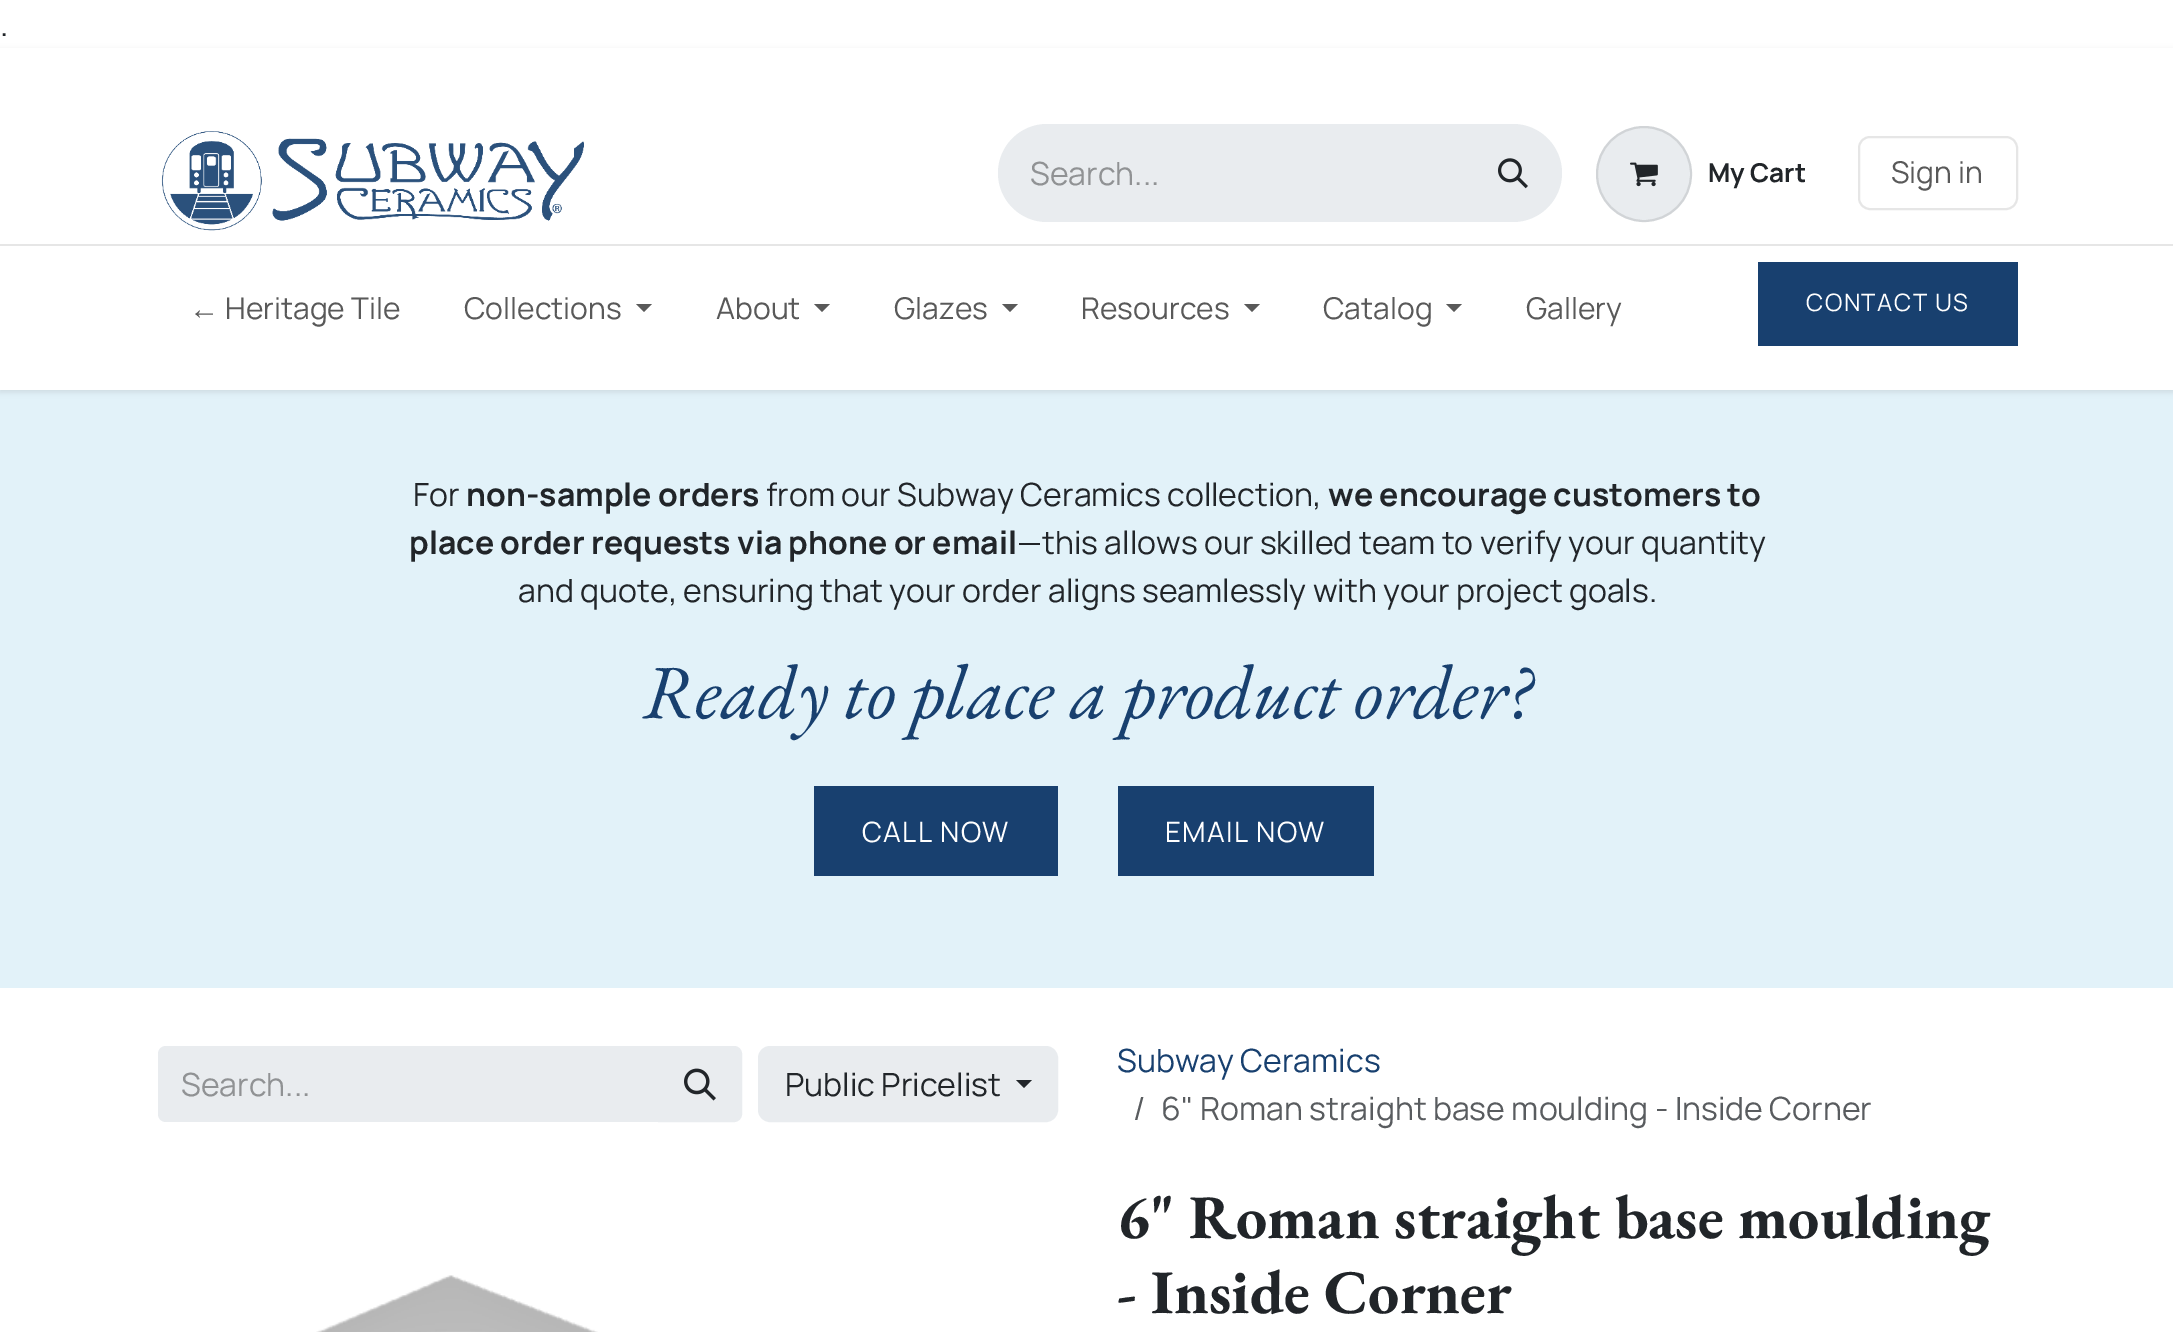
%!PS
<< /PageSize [2173 1332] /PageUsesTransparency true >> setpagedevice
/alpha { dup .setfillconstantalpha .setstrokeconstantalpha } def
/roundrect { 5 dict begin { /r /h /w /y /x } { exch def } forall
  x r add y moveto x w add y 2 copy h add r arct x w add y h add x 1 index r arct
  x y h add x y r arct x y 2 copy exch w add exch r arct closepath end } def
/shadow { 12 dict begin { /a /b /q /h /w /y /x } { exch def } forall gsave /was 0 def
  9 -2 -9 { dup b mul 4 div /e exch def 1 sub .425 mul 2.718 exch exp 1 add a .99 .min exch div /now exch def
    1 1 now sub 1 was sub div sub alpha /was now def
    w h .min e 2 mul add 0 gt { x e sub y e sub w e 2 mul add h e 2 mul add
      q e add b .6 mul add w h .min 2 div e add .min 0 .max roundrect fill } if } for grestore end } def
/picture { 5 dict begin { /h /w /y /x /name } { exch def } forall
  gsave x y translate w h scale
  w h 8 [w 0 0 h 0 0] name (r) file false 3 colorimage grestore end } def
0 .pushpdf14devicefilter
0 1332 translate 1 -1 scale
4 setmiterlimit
1 setgray
0 0 2173 1332 rectfill
/Manrope-Regular [32 0 0 -32 0 0] selectfont
0.129 0.145 0.161 setrgbcolor
0 36 moveto (.) show
0.886 0.949 0.976 setrgbcolor
0 390 2173 598 rectfill
gsave
newpath 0 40 moveto 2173 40 lineto 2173 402 lineto 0 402 lineto closepath 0 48 moveto 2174 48 lineto 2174 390 lineto 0 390 lineto closepath eoclip newpath
0 setgray
0 50 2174 342 0 3 0.1 shadow
grestore
(img1.rgb) 161 131 423 100 picture
0.914 0.925 0.937 setrgbcolor
newpath 1047 124 moveto 1466 124 lineto 1466 222 lineto 1047 222 lineto 1020 222 998 200 998 173 curveto 998 146 1020 124 1047 124 curveto closepath fill
0.565 0.573 0.58 setrgbcolor
1030 185 moveto (Search...) show
0.914 0.925 0.937 setrgbcolor
newpath 1464 124 moveto 1513 124 lineto 1540 124 1562 146 1562 173 curveto 1562 200 1540 222 1513 222 curveto 1464 222 lineto closepath fill
(img2.rgb) 1498 158 30 31 picture
newpath 1644 174 48 0 360 arc closepath fill
0.1 alpha
0 setgray
2 setlinewidth
newpath 1644 174 47 0 360 arc closepath stroke
1 alpha
(img3.rgb) 1630 162 28 25 picture
/Manrope-Bold [26 0 0 -26 0 0] selectfont
0.129 0.145 0.161 setrgbcolor
1708 182 moveto (My Cart) show
0.902 setgray
1859 137 158 72 11 roundrect stroke
/Manrope-Regular [30 0 0 -30 0 0] selectfont
0.349 setgray
1891 183 moveto (Sign in) show
0.902 setgray
0 244 2173 2 rectfill
/LiberationSans-Regular [30 0 0 -30 0 0] selectfont
0.349 setgray
189 319 moveto (←) show
/Manrope-Regular [30 0 0 -30 0 0] selectfont
225 319 moveto (Heritage Tile) show
464 319 moveto (Collections) show
newpath 636 304 moveto 652 304 lineto 644 312 lineto closepath fill
716 319 moveto (About) show
newpath 814 304 moveto 830 304 lineto 822 312 lineto closepath fill
894 319 moveto (Glazes) show
newpath 1002 304 moveto 1018 304 lineto 1010 312 lineto closepath fill
1081 319 moveto (Resources) show
newpath 1244 304 moveto 1260 304 lineto 1252 312 lineto closepath fill
1323 319 moveto (Catalog) show
newpath 1446 304 moveto 1462 304 lineto 1454 312 lineto closepath fill
1526 319 moveto (Gallery) show
0.094 0.251 0.435 setrgbcolor
1758 262 260 84 rectfill
/Manrope-Regular [24 0 0 -24 0 0] selectfont
1 setgray
1806 311 moveto 1.5 0 (CONTACT US) ashow
/Manrope-Regular [32 0 0 -32 0 0] selectfont
0.129 0.145 0.161 setrgbcolor
413 506 moveto (For) show
/Manrope-Bold [32 0 0 -32 0 0] selectfont
466 506 moveto (non-sample orders) show
/Manrope-Regular [32 0 0 -32 0 0] selectfont
766 506 moveto (from our Subway Ceramics collection,) show
/Manrope-Bold [32 0 0 -32 0 0] selectfont
1328 506 moveto (we encourage customers to) show
409 554 moveto (place order requests via phone or email) show
/Manrope-Regular [32 0 0 -32 0 0] selectfont
1017 554 moveto (—this allows our skilled team to verify your quantity) show
518 602 moveto (and quote, ensuring that your order aligns seamlessly with your project goals.) show
/EBGaramond-Italic [76.6 0 0 -76.6 0 0] selectfont
0.094 0.251 0.435 setrgbcolor
642 718 moveto (Ready to place a product order?) show
814 786 244 90 rectfill
/Manrope-Regular [28 0 0 -28 0 0] selectfont
1 setgray
862 842 moveto 1.25 0 (CALL NOW) ashow
0.094 0.251 0.435 setrgbcolor
1118 786 256 90 rectfill
1 setgray
1165 842 moveto 1.25 0 (EMAIL NOW) ashow
0.914 0.925 0.937 setrgbcolor
newpath 166 1046 moveto 660 1046 lineto 660 1122 lineto 166 1122 lineto 161.5 1122 158 1118.5 158 1114 curveto 158 1054 lineto 158 1049.5 161.5 1046 166 1046 curveto closepath fill
/Manrope-Regular [32 0 0 -32 0 0] selectfont
0.565 0.573 0.58 setrgbcolor
181 1096 moveto (Search...) show
0.914 0.925 0.937 setrgbcolor
newpath 659 1047 moveto 734 1047 lineto 738 1047 741 1050 741 1054 curveto 741 1114 lineto 741 1118 738 1121 734 1121 curveto 659 1121 lineto closepath gsave fill grestore
stroke
(img4.rgb) 684 1068 32 33 picture
759 1047 298 74 11 roundrect gsave fill grestore
stroke
0.129 0.145 0.161 setrgbcolor
785 1096 moveto (Public Pricelist) show
newpath 1016 1080 moveto 1032 1080 lineto 1024 1088 lineto closepath fill
0.094 0.251 0.435 setrgbcolor
1117 1072 moveto (Subway Ceramics) show
0.349 0.361 0.373 setrgbcolor
1133 1120 moveto (/) show
1161 1120 moveto (6" Roman straight base moulding - Inside Corner) show
(img5.rgb) 316 1275 282 57 picture
/EBGaramond-Bold [62 0 0 -62 0 0] selectfont
0.129 0.145 0.161 setrgbcolor
1117 1238 moveto (6" Roman straight base moulding) show
1117 1313 moveto (- Inside Corner) show
.poppdf14devicefilter showpage
